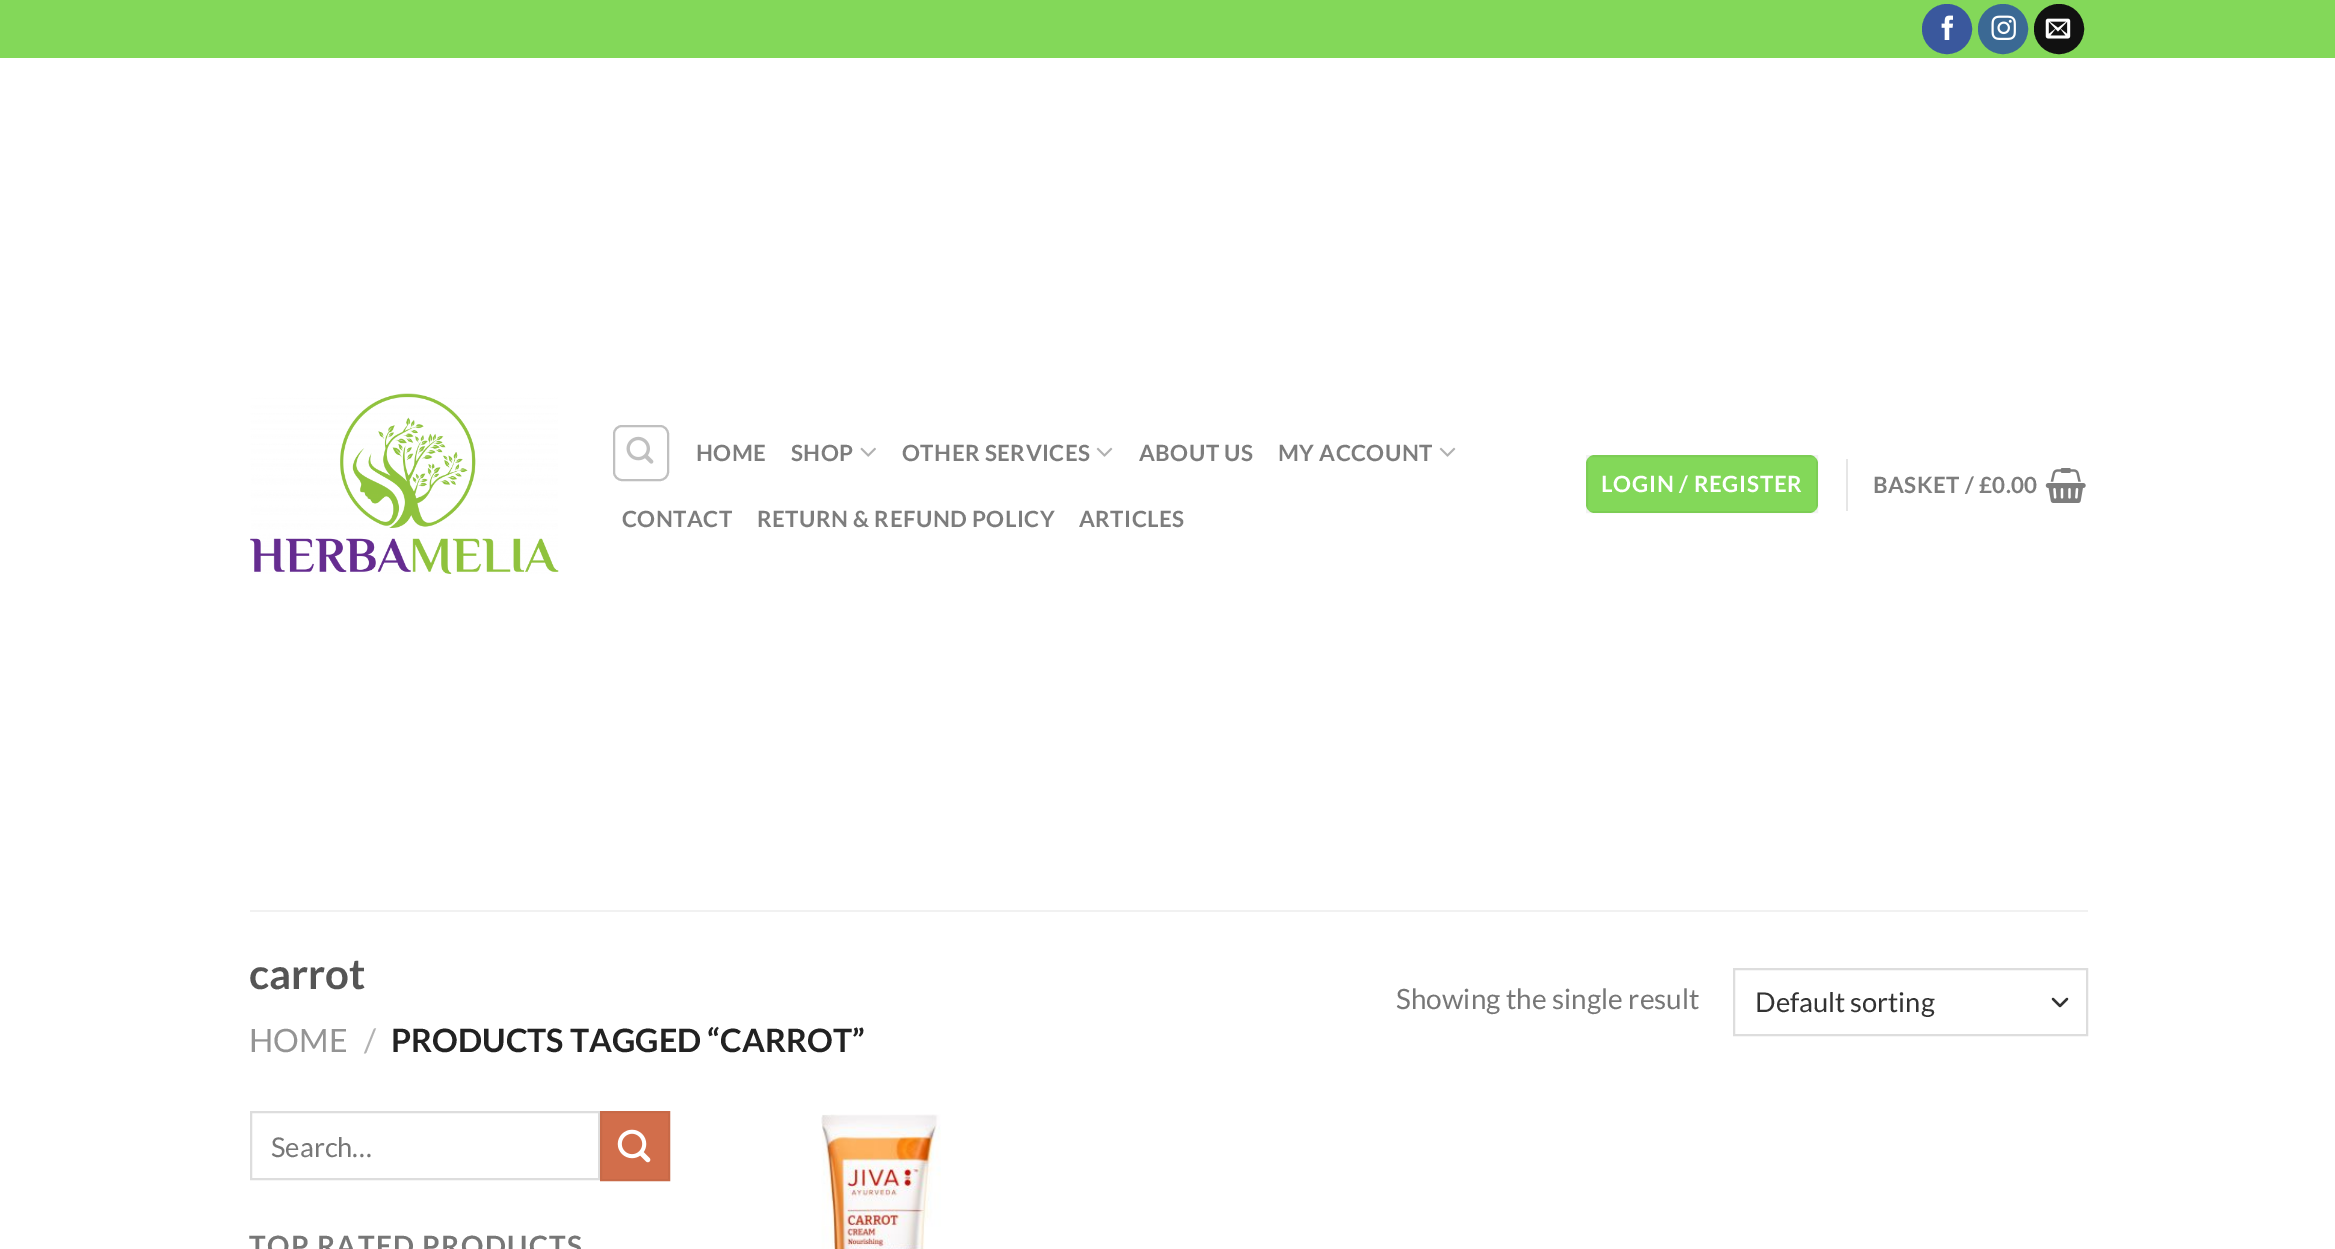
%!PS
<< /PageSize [2335 1249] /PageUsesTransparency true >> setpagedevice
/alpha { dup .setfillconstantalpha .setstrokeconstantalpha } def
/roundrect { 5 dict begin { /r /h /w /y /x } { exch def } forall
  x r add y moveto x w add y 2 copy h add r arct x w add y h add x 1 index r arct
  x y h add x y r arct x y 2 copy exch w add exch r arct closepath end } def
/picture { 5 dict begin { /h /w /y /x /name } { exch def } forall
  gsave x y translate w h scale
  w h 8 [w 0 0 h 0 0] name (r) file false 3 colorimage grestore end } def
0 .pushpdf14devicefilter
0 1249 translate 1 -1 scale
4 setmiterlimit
1 setgray
0 0 2335 1249 rectfill
0.514 0.847 0.349 setrgbcolor
0 0 2335 58 rectfill
0.227 0.345 0.616 setrgbcolor
newpath 1947 29 24 0 360 arc closepath gsave fill grestore
2 setlinewidth
stroke
(img1.rgb) 1941 15 12 25 picture
0.231 0.412 0.58 setrgbcolor
newpath 2003 29 24 0 360 arc closepath gsave fill grestore
stroke
(img2.rgb) 1991 15 25 25 picture
0.067 setgray
newpath 2059 29 24 0 360 arc closepath gsave fill grestore
stroke
(img3.rgb) 2045 18 26 21 picture
(img4.rgb) 250 393 309 181 picture
0.753 setgray
614 426 54 54 8 roundrect stroke
(img5.rgb) 626 436 28 28 picture
/Lato-Bold [22.4 0 0 -22.4 0 0] selectfont
0.49 setgray
696 461 moveto 0.45 0 (HOME) ashow
791 461 moveto 0.45 0 (SHOP) ashow
(img6.rgb) 860 447 16 10 picture
902 461 moveto 0.45 0 (OTHER SERVICES) ashow
(img7.rgb) 1096 447 17 10 picture
1139 461 moveto 0.45 0 (ABOUT US) ashow
1278 461 moveto 0.45 0 (MY ACCOUNT) ashow
(img7.rgb) 1439 447 17 10 picture
622 527 moveto 0.45 0 (CONTACT) ashow
757 527 moveto 0.45 0 (RETURN & REFUND POLICY) ashow
1079 527 moveto 0.45 0 (ARTICLES) ashow
0.514 0.847 0.349 setrgbcolor
1586 455 232 58 9 roundrect fill
0.05 alpha
0 setgray
1587 456 230 56 rectstroke
1 alpha
1 setgray
1601 492 moveto 0.7 0 (LOGIN / REGISTER) ashow
0.902 setgray
1846 459 2 52 rectfill
0.49 setgray
1873 493 moveto 0.45 0 (BASKET / £0.00) ashow
(img8.rgb) 2045 468 41 35 picture
0.945 setgray
250 910 1838 2 rectfill
/Lato-Bold [42 0 0 -42 0 0] selectfont
0.333 setgray
249 989 moveto (carrot) show
/Lato-Regular [32.25 0 0 -32.25 0 0] selectfont
0.58 setgray
249 1052 moveto (HOME) show
0.698 setgray
364 1052 moveto (/) show
/Lato-Bold [32.25 0 0 -32.25 0 0] selectfont
0.133 setgray
391 1052 moveto (PRODUCTS TAGGED “CARROT”) show
/Lato-Regular [28 0 0 -28 0 0] selectfont
0.467 setgray
1396 1009 moveto (Showing the single result) show
0.2 setgray
2.3 setlinewidth
1 setlinecap
1 setlinejoin
newpath 2053 999 moveto 2060 1006 lineto 2067 999 lineto stroke
0.867 setgray
2 setlinewidth
0 setlinecap
0 setlinejoin
1734 969 353 66 rectstroke
/Lato-Regular [27.25 0 0 -27.25 0 0] selectfont
0.2 setgray
1755 1012 moveto (Default sorting) show
0.867 setgray
251 1112 348 67 rectstroke
0.467 setgray
271 1157 moveto (Search…) show
0.824 0.431 0.294 setrgbcolor
newpath 601 1112 moveto 669 1112 lineto 669 1180 lineto 601 1180 lineto closepath gsave fill grestore
0.784 0.412 0.278 setrgbcolor
stroke
(img9.rgb) 617 1129 34 34 picture
/Lato-Bold [28 0 0 -28 0 0] selectfont
0.467 setgray
249 1256 moveto 1.4 0 (TOP RATED PRODUCTS) ashow
(img10.rgb) 821 1114 120 135 picture
.poppdf14devicefilter showpage
